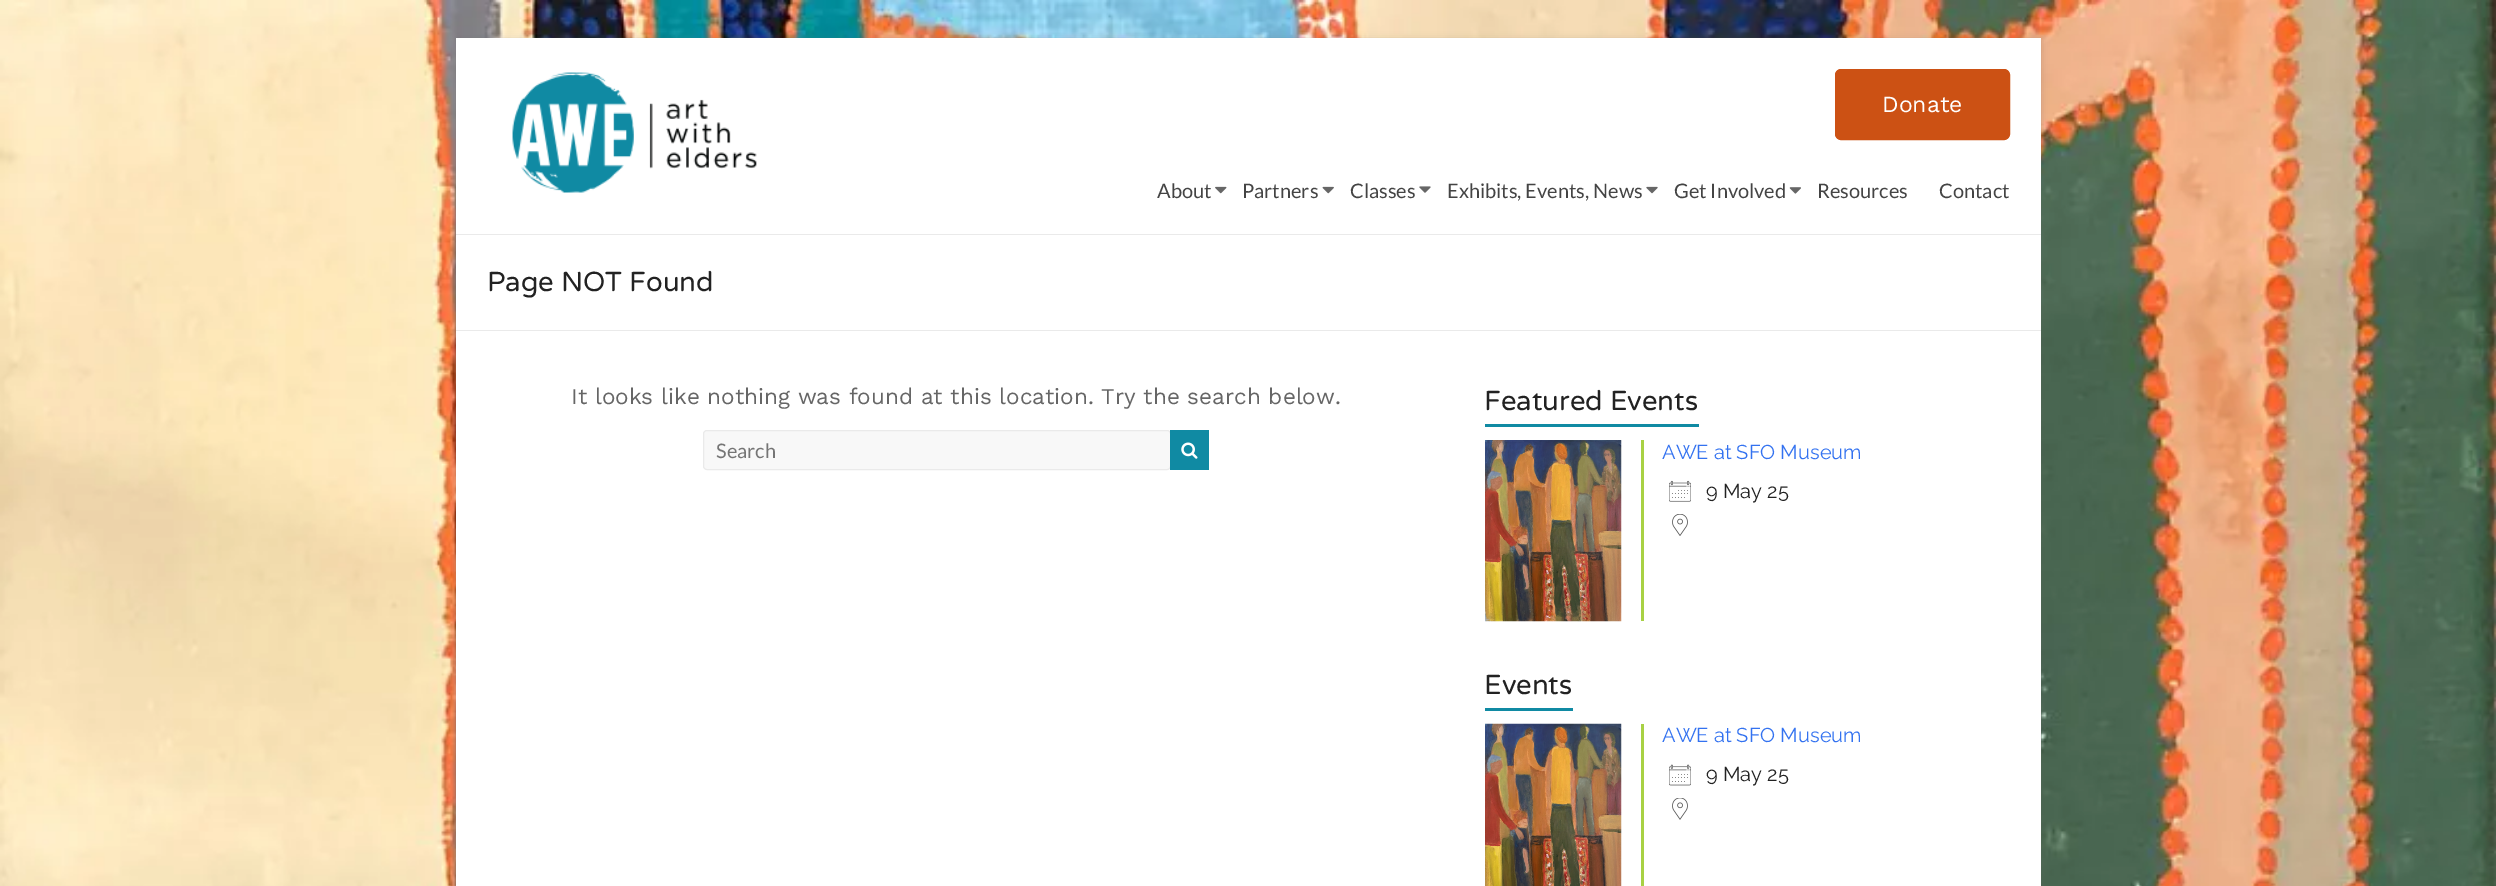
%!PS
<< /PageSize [2496 886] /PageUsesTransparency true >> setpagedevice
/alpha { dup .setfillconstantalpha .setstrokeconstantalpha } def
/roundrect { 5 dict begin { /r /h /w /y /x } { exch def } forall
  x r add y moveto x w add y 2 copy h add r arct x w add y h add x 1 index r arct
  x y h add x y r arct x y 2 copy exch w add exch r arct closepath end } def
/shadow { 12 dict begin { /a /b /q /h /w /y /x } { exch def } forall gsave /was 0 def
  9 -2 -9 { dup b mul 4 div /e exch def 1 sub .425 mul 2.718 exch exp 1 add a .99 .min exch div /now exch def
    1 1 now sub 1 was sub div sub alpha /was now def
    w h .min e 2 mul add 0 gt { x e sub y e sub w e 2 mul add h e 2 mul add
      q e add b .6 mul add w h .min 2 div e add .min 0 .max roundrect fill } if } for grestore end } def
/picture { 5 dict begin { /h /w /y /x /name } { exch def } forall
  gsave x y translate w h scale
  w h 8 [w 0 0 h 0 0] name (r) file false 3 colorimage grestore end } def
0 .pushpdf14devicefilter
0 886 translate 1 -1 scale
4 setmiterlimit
1 setgray
0 0 2496 886 rectfill
(img1.rgb) 0 0 2496 886 picture
0.392 setgray
456 40 1585 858 0 4 0.3 shadow
1 setgray
456 38 1585 848 rectfill
0.918 setgray
456 234 1585 1 rectfill
(img2.rgb) 512 72 245 121 picture
0.8 0.318 0.078 setrgbcolor
1835.5 69.5 174 70 5.5 roundrect gsave fill grestore
stroke
/WorkSans-Regular [23 0 0 -23 0 0] selectfont
1 setgray
1882 112 moveto (Donate) show
/Lato-Regular [20 0 0 -20 0 0] selectfont
0.267 setgray
1157 198 moveto (About) show
(img3.rgb) 1215 186 12 8 picture
1242 198 moveto (Partners) show
(img4.rgb) 1322 186 12 8 picture
1350 198 moveto (Classes) show
(img5.rgb) 1419 186 12 7 picture
1447 198 moveto (Exhibits, Events, News) show
(img6.rgb) 1646 186 12 8 picture
1674 198 moveto (Get Involved) show
(img7.rgb) 1789 187 12 7 picture
1817 198 moveto (Resources) show
1939 198 moveto (Contact) show
0.918 setgray
456 330 1585 1 rectfill
/VarelaRound-Regular [27.5 0 0 -27.5 0 0] selectfont
0.133 setgray
487 291 moveto (Page NOT Found) show
/WorkSans-Regular [22.5 0 0 -22.5 0 0] selectfont
0.4 setgray
571 404 moveto (It looks like nothing was found at this location. Try the search below.) show
0.973 setgray
703.5 430.5 467 39 3.5 roundrect gsave fill grestore
0.918 setgray
stroke
/Lato-Regular [20 0 0 -20 0 0] selectfont
0.459 setgray
716 458 moveto (Search) show
0.063 0.541 0.639 setrgbcolor
1170 430 39 40 rectfill
(img8.rgb) 1181 442 17 17 picture
/VarelaRound-Regular [27.5 0 0 -27.5 0 0] selectfont
0.133 setgray
1484 410 moveto (Featured Events) show
0.063 0.541 0.639 setrgbcolor
1485 424 214 3 rectfill
(img9.rgb) 1485 440 137 182 picture
0.659 0.82 0.267 setrgbcolor
1641 440 3 181 rectfill
/Raleway-Regular [20 0 0 -20 0 0] selectfont
0.2 0.447 0.941 setrgbcolor
1662 459 moveto (AWE at SFO Museum) show
(img10.rgb) 1669 480 22 22 picture
0.133 setgray
1706 498 moveto (9 May 25) show
(img11.rgb) 1672 514 16 22 picture
/VarelaRound-Regular [27.5 0 0 -27.5 0 0] selectfont
1484 694 moveto (Events) show
0.063 0.541 0.639 setrgbcolor
1485 708 88 3 rectfill
(img12.rgb) 1485 723 137 163 picture
0.659 0.82 0.267 setrgbcolor
1641 724 3 162 rectfill
/Raleway-Regular [20 0 0 -20 0 0] selectfont
0.2 0.447 0.941 setrgbcolor
1662 742 moveto (AWE at SFO Museum) show
(img13.rgb) 1669 764 22 22 picture
0.133 setgray
1706 781 moveto (9 May 25) show
(img14.rgb) 1672 798 16 22 picture
.poppdf14devicefilter showpage
